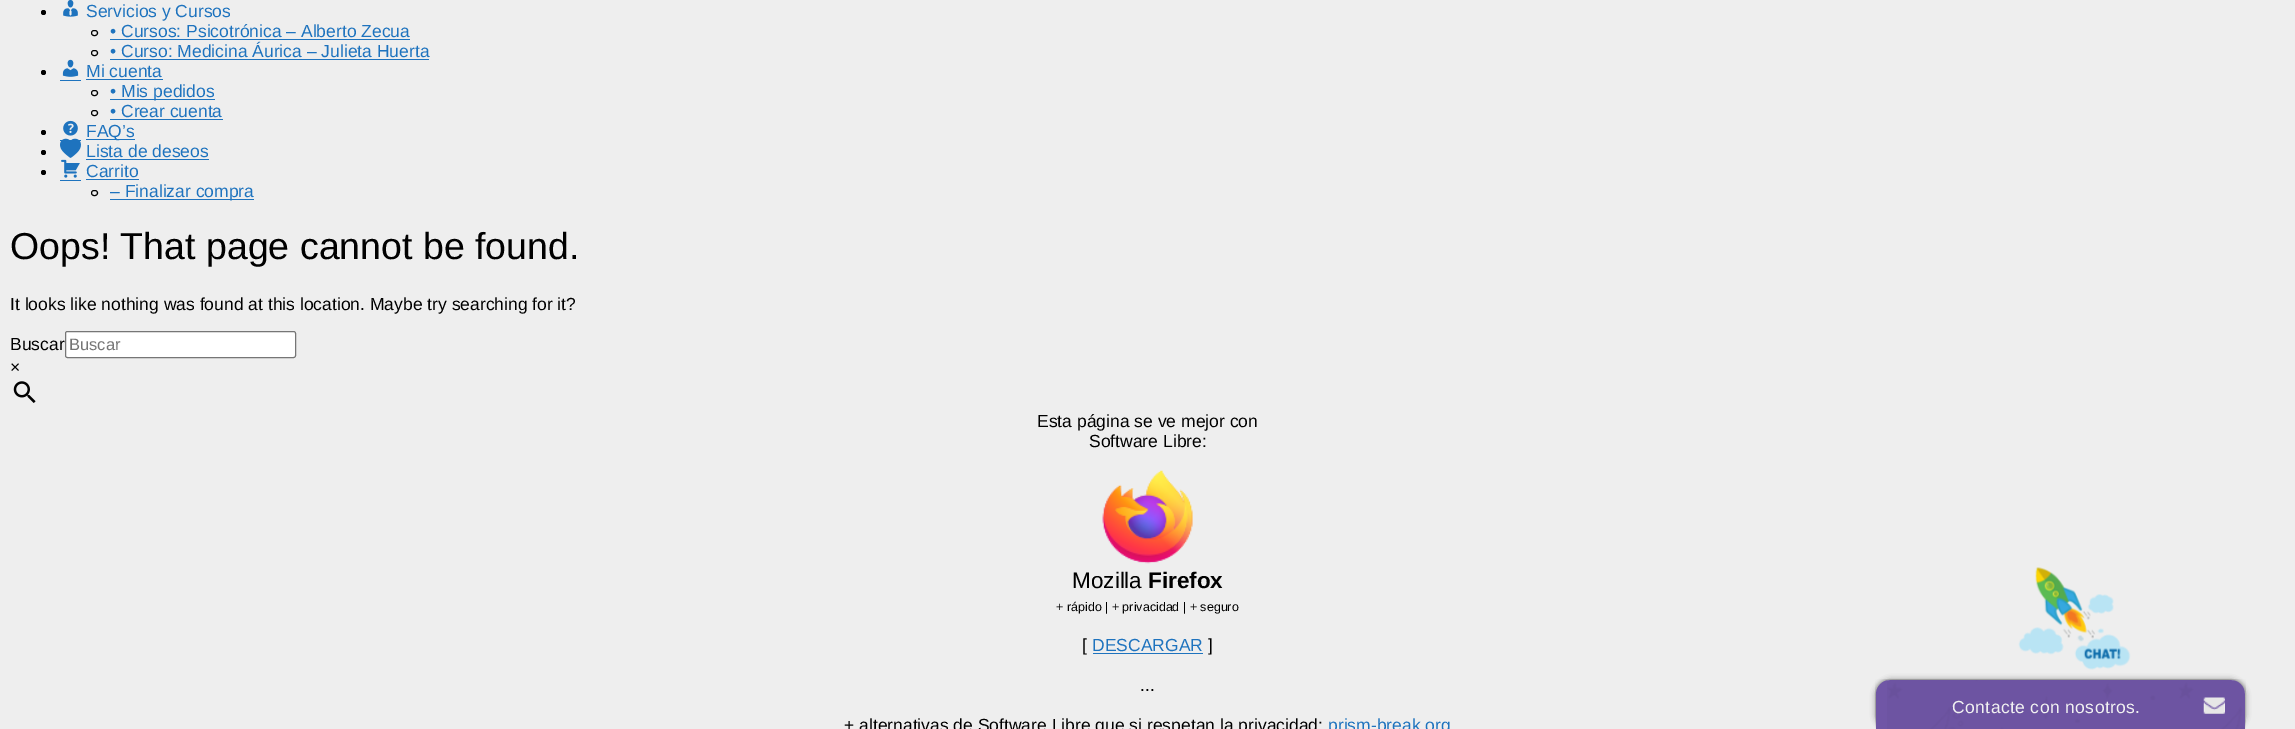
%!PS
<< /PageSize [2295 729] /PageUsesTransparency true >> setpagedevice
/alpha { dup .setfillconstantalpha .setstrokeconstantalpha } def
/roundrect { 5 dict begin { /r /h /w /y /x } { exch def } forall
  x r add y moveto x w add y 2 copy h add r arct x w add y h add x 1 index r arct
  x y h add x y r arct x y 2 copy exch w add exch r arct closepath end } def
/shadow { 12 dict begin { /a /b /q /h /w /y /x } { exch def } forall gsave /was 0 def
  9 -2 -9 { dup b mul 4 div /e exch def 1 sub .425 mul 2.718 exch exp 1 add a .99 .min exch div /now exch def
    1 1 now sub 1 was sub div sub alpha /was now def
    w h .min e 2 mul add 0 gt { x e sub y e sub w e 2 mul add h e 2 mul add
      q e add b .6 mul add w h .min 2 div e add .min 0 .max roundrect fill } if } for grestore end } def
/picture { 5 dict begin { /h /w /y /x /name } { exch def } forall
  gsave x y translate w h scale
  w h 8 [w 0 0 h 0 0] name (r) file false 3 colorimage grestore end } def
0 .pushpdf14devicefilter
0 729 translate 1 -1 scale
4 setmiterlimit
0.933 setgray
0 0 2295 729 rectfill
0 setgray
newpath 43.5 12.5 2.5 0 360 arc closepath fill
(img1.rgb) 63 0 15 17 picture
/LiberationSans-Regular [17.5 0 0 -17.5 0 0] selectfont
0.118 0.451 0.745 setrgbcolor
86 17 moveto (Servicios y Cursos) show
0 setgray
91.5 30.5 6 5 2.5 roundrect stroke
0.118 0.451 0.745 setrgbcolor
110 37 moveto (• Cursos: Psicotrónica – Alberto Zecua) show
110 39 300 1 rectfill
0 setgray
91.5 50.5 6 5 2.5 roundrect stroke
0.118 0.451 0.745 setrgbcolor
110 57 moveto (• Curso: Medicina Áurica – Julieta Huerta) show
110 59 319 1 rectfill
0 setgray
newpath 43.5 72.5 2.5 0 360 arc closepath fill
(img2.rgb) 62 59 17 18 picture
0.118 0.451 0.745 setrgbcolor
60 80 21 1 rectfill
86 77 moveto (Mi cuenta) show
86 79 77 1 rectfill
0 setgray
91.5 90.5 6 5 2.5 roundrect stroke
0.118 0.451 0.745 setrgbcolor
110 99 105 1 rectfill
110 97 moveto (• Mis pedidos) show
0 setgray
91.5 110.5 6 5 2.5 roundrect stroke
0.118 0.451 0.745 setrgbcolor
110 117 moveto (• Crear cuenta) show
110 119 113 1 rectfill
0 setgray
newpath 43.5 132.5 2.5 0 360 arc closepath fill
(img3.rgb) 63 120 15 16 picture
0.118 0.451 0.745 setrgbcolor
60 140 21 1 rectfill
86 139 49 1 rectfill
86 137 moveto (FAQ’s) show
0 setgray
newpath 43.5 152.5 2.5 0 360 arc closepath fill
(img4.rgb) 60 138 21 20 picture
0.118 0.451 0.745 setrgbcolor
86 157 moveto (Lista de deseos) show
86 159 123 1 rectfill
0 setgray
newpath 43.5 172.5 2.5 0 360 arc closepath fill
(img5.rgb) 61 159 19 19 picture
0.118 0.451 0.745 setrgbcolor
60 180 21 1 rectfill
86 177 moveto (Carrito) show
86 179 53 1 rectfill
0 setgray
91.5 190.5 6 5 2.5 roundrect stroke
0.118 0.451 0.745 setrgbcolor
110 199 144 1 rectfill
110 197 moveto (– Finalizar compra) show
/LiberationSans-Regular [37.5 0 0 -37.5 0 0] selectfont
0 setgray
10 259 moveto (Oops! That page cannot be found.) show
/LiberationSans-Regular [17.5 0 0 -17.5 0 0] selectfont
10 310 moveto (It looks like nothing was found at this location. Maybe try searching for it?) show
10 350 moveto (Buscar) show
1 setgray
65.5 331.5 230 26 2 roundrect gsave fill grestore
0.463 setgray
stroke
/LiberationSans-Regular [16.5 0 0 -16.5 0 0] selectfont
0.459 setgray
69 350 moveto (Buscar) show
/LiberationSans-Regular [17.5 0 0 -17.5 0 0] selectfont
0 setgray
10 373 moveto (×) show
(img6.rgb) 13 381 23 22 picture
1037 427 moveto (Esta página se ve mejor con) show
1089 447 moveto (Software Libre:) show
(img7.rgb) 1102 470 91 94 picture
/LiberationSans-Regular [22.5 0 0 -22.5 0 0] selectfont
1072 588 moveto (Mozilla) show
/LiberationSans-Bold [22.5 0 0 -22.5 0 0] selectfont
1148 588 moveto (Firefox) show
/LiberationSans-Regular [12.5 0 0 -12.5 0 0] selectfont
1056 611 moveto (+ rápido | + privacidad | + seguro) show
/LiberationSans-Regular [17.5 0 0 -17.5 0 0] selectfont
1082 651 moveto ([) show
0.118 0.451 0.745 setrgbcolor
1092 651 moveto (DESCARGAR) show
1093 653 110 1 rectfill
0 setgray
1208 651 moveto (]) show
1140 691 moveto (...) show
844 731 moveto (+ alternativas de Software Libre que si respetan la privacidad:) show
0.118 0.451 0.745 setrgbcolor
1328 731 moveto (prism-break.org) show
(img8.rgb) 2018 567 113 103 picture
0.467 setgray
1876 680 369 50 16 3 1 shadow
(img9.rgb) 1875 679 371 50 picture
0.439 0.337 0.651 setrgbcolor
newpath 1890 680 moveto 2231 680 lineto 2238.5 680 2245 686.5 2245 694 curveto 2245 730 lineto 1876 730 lineto 1876 694 lineto 1876 686.5 1882.5 680 1890 680 curveto closepath fill
(img10.rgb) 1887 680 358 49 picture
0.945 setgray
1952 713 moveto 0.4 0 (Contacte con nosotros.) ashow
(img11.rgb) 2203 697 22 17 picture
.poppdf14devicefilter showpage
